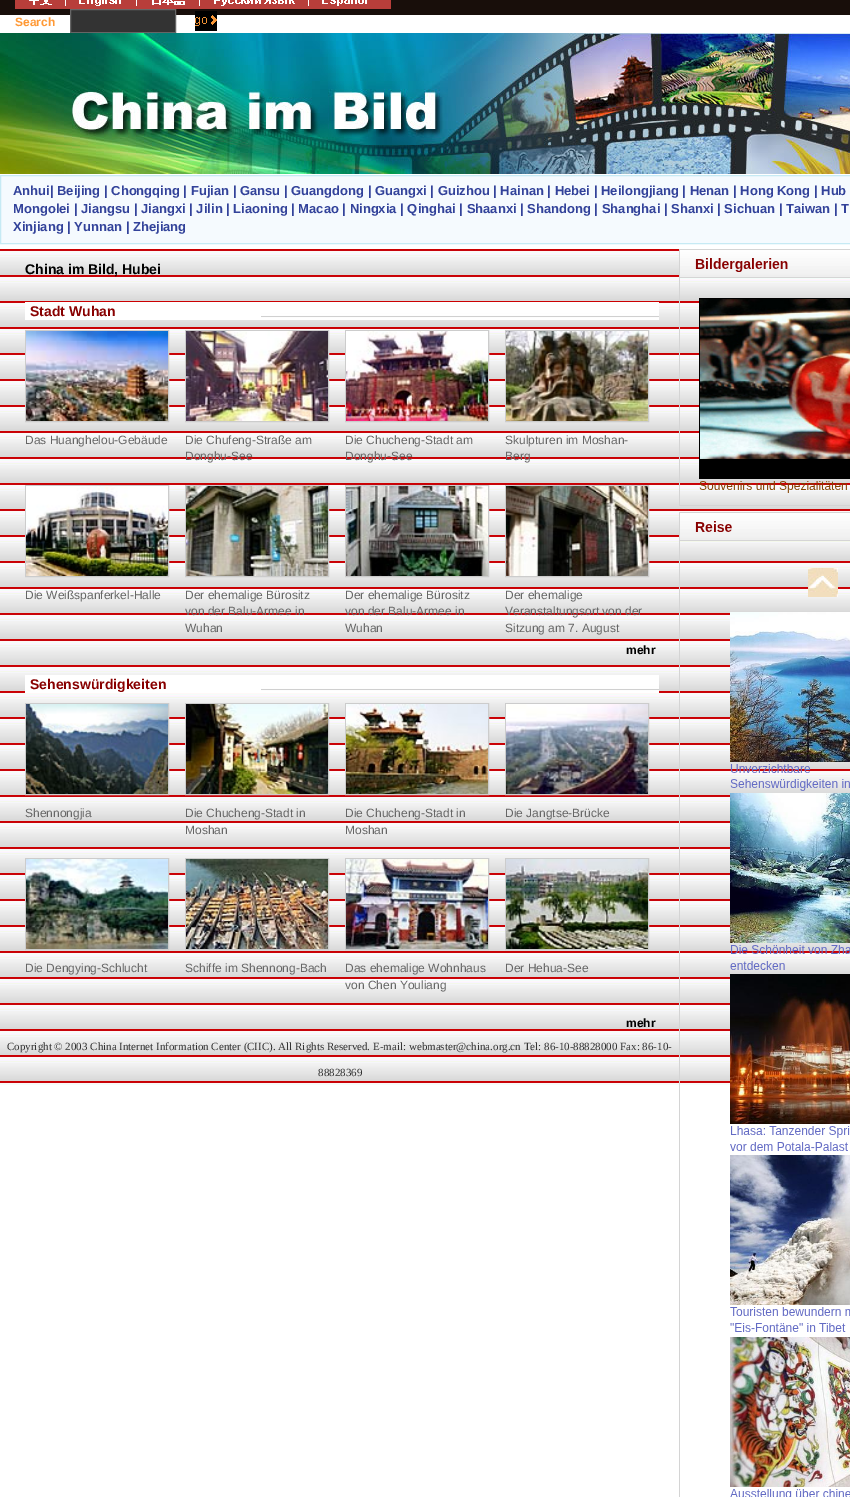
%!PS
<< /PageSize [850 1497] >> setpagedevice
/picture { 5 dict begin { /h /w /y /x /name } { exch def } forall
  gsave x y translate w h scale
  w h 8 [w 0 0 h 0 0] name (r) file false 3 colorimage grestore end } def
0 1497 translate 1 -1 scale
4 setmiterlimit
1 setgray
0 0 850 1497 rectfill
0.094 0.055 0.039 setrgbcolor
0 0 850 15 rectfill
(img1.rgb) 15 0 376 9 picture
/LiberationSans-Bold [12 0 0 -12 0 0] selectfont
1 0.6 0.208 setrgbcolor
15 26 moveto (Search) show
0.2 setgray
newpath 70.5 9.5 moveto 175.5 9.5 lineto 175.5 32.5 lineto 70.5 32.5 lineto closepath gsave fill grestore
0.4 setgray
stroke
(img2.rgb) 195 11 22 20 picture
(img3.rgb) 0 33 850 141 picture
0.961 0.98 0.996 setrgbcolor
newpath 0.5 175.5 moveto 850.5 175.5 lineto 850.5 243.5 lineto 0.5 243.5 lineto closepath gsave fill grestore
0.776 0.918 0.957 setrgbcolor
stroke
/LiberationSans-Bold [13 0 0 -13 0 0] selectfont
0.196 0.259 0.604 setrgbcolor
13 195 moveto (Anhui| Beijing | Chongqing | Fujian | Gansu | Guangdong | Guangxi | Guizhou | Hainan | Hebei | Heilongjiang | Henan | Hong Kong | Hub) show
13 213 moveto (Mongolei | Jiangsu | Jiangxi | Jilin | Liaoning | Macao | Ningxia | Qinghai | Shaanxi | Shandong | Shanghai | Shanxi | Sichuan | Taiwan | T) show
13 231 moveto (Xinjiang | Yunnan | Zhejiang) show
(img22.rgb) 0 249 850 836 picture
/LiberationSans-Bold [14 0 0 -14 0 0] selectfont
0 setgray
25 274 moveto (China im Bild, Hubei) show
(img4.rgb) 261 302 398 18 picture
1 setgray
25 302 236 18 rectfill
0.533 0 0 setrgbcolor
30 316 moveto (Stadt Wuhan) show
0.8 setgray
25.5 330.5 143 91 rectstroke
(img5.rgb) 26 331 142 90 picture
/LiberationSans-Regular [12 0 0 -12 0 0] selectfont
0.4 setgray
25 444 moveto (Das Huanghelou-Gebäude) show
0.8 setgray
185.5 330.5 143 91 rectstroke
(img6.rgb) 186 331 142 90 picture
0.4 setgray
185 444 moveto (Die Chufeng-Straße am) show
185 460 moveto (Donghu-See) show
0.8 setgray
345.5 330.5 143 91 rectstroke
(img7.rgb) 346 331 142 90 picture
0.4 setgray
345 444 moveto (Die Chucheng-Stadt am) show
345 460 moveto (Donghu-See) show
0.8 setgray
505.5 330.5 143 91 rectstroke
(img8.rgb) 506 331 142 90 picture
0.4 setgray
505 444 moveto (Skulpturen im Moshan-) show
505 460 moveto (Berg) show
0.8 setgray
25.5 485.5 143 91 rectstroke
(img9.rgb) 26 486 142 90 picture
0.4 setgray
25 599 moveto (Die Weißspanferkel-Halle) show
0.8 setgray
185.5 485.5 143 91 rectstroke
(img10.rgb) 186 486 142 90 picture
0.4 setgray
185 599 moveto (Der ehemalige Bürositz) show
185 615 moveto (von der Balu-Armee in) show
185 632 moveto (Wuhan) show
0.8 setgray
345.5 485.5 143 91 rectstroke
(img11.rgb) 346 486 142 90 picture
0.4 setgray
345 599 moveto (Der ehemalige Bürositz) show
345 615 moveto (von der Balu-Armee in) show
345 632 moveto (Wuhan) show
0.8 setgray
505.5 485.5 143 91 rectstroke
(img12.rgb) 506 486 142 90 picture
0.4 setgray
505 599 moveto (Der ehemalige) show
505 615 moveto (Veranstaltungsort von der) show
505 632 moveto (Sitzung am 7. August) show
/LiberationSans-Bold [12 0 0 -12 0 0] selectfont
0 setgray
626 654 moveto (mehr) show
(img4.rgb) 261 675 398 18 picture
1 setgray
25 675 236 18 rectfill
/LiberationSans-Bold [14 0 0 -14 0 0] selectfont
0.533 0 0 setrgbcolor
30 689 moveto (Sehenswürdigkeiten) show
0.8 setgray
25.5 703.5 143 91 rectstroke
(img13.rgb) 26 704 142 90 picture
/LiberationSans-Regular [12 0 0 -12 0 0] selectfont
0.4 setgray
25 817 moveto (Shennongjia) show
0.8 setgray
185.5 703.5 143 91 rectstroke
(img14.rgb) 186 704 142 90 picture
0.4 setgray
185 817 moveto (Die Chucheng-Stadt in) show
185 834 moveto (Moshan) show
0.8 setgray
345.5 703.5 143 91 rectstroke
(img15.rgb) 346 704 142 90 picture
0.4 setgray
345 817 moveto (Die Chucheng-Stadt in) show
345 834 moveto (Moshan) show
0.8 setgray
505.5 703.5 143 91 rectstroke
(img16.rgb) 506 704 142 90 picture
0.4 setgray
505 817 moveto (Die Jangtse-Brücke) show
0.8 setgray
25.5 858.5 143 91 rectstroke
(img17.rgb) 26 859 142 90 picture
0.4 setgray
25 972 moveto (Die Dengying-Schlucht) show
0.8 setgray
185.5 858.5 143 91 rectstroke
(img18.rgb) 186 859 142 90 picture
0.4 setgray
185 972 moveto (Schiffe im Shennong-Bach) show
0.8 setgray
345.5 858.5 143 91 rectstroke
(img19.rgb) 346 859 142 90 picture
0.4 setgray
345 972 moveto (Das ehemalige Wohnhaus) show
345 989 moveto (von Chen Youliang) show
0.8 setgray
505.5 858.5 143 91 rectstroke
(img20.rgb) 506 859 142 90 picture
0.4 setgray
505 972 moveto (Der Hehua-See) show
/LiberationSans-Bold [12 0 0 -12 0 0] selectfont
0 setgray
626 1027 moveto (mehr) show
(img21.rgb) 679 249 171 1248 picture
/LiberationSerif-Regular [11 0 0 -11 0 0] selectfont
0.2 setgray
7 1050 moveto (Copyright © 2003 China Internet Information Center \(CIIC\). All Rights Reserved. E-mail: webmaster@china.org.cn Tel: 86-10-88828000 Fax: 86-10-) show
318 1076 moveto (88828369) show
showpage
